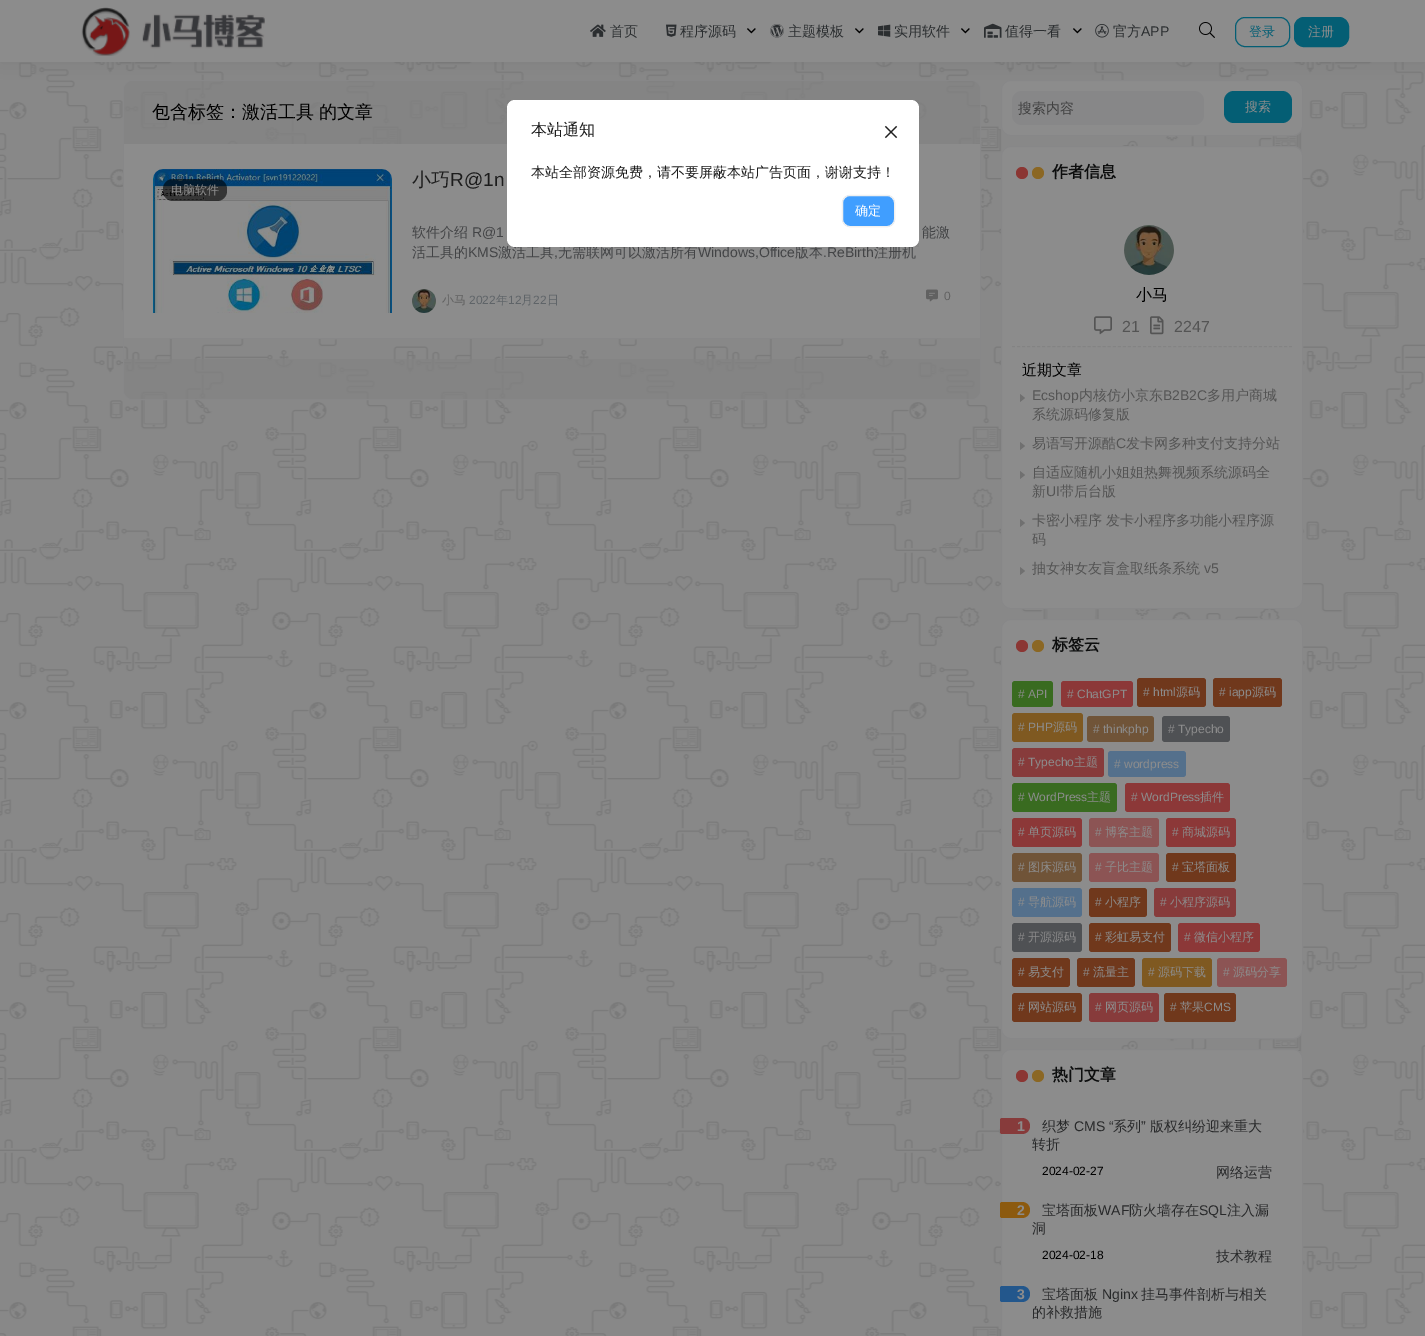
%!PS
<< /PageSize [1425 1336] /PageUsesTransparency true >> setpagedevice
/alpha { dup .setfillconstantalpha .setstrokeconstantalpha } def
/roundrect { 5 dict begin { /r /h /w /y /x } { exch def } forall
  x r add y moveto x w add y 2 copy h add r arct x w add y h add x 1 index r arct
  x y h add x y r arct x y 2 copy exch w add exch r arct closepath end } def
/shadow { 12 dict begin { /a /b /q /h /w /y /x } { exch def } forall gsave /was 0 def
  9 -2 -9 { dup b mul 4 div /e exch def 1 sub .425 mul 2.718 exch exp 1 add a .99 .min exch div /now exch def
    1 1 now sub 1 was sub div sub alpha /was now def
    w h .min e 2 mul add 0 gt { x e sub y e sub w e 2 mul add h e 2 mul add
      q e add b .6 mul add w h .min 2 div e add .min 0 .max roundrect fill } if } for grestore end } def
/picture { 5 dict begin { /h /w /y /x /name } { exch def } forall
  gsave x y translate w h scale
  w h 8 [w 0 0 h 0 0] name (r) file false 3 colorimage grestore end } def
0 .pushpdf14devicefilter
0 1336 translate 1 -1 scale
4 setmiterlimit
1 setgray
0 0 1425 1336 rectfill
(img1.rgb) 0 62 1425 1274 picture
0.529 0.529 0.533 setrgbcolor
123.5 80.5 857 319 9.5 roundrect stroke
0.73 alpha
0.51 setgray
newpath 133 81 moveto 971 81 lineto 976 81 980 85 980 90 curveto 980 144 lineto 124 144 lineto 124 90 lineto 124 85 128 81 133 81 curveto closepath fill
1 alpha
0.549 setgray
1001.5 80.5 301 55 9.5 roundrect gsave fill grestore
0.529 0.529 0.533 setrgbcolor
stroke
1012 91 192 34 10 roundrect fill
0.016 0.369 0.455 setrgbcolor
1224 91 68 32 10 roundrect fill
0 setgray
0 0 1425 62 0 10 0.05 shadow
0.549 setgray
0 0 1425 62 rectfill
(img2.rgb) 81 7 184 49 picture
(img3.rgb) 590 24 16 13 picture
/WenQuanYiZenHei-Medium [14 0 0 -14 0 0] selectfont
0.169 0.18 0.188 setrgbcolor
610 36 moveto (首页) show
(img4.rgb) 666 24 11 13 picture
680 36 moveto (程序源码) show
(img5.rgb) 747 28 9 6 picture
(img6.rgb) 770 24 14 14 picture
788 36 moveto (主题模板) show
(img5.rgb) 855 28 9 6 picture
(img7.rgb) 878 24 13 13 picture
894 36 moveto (实用软件) show
(img5.rgb) 961 28 9 6 picture
(img8.rgb) 984 23 18 15 picture
1005 36 moveto (值得一看) show
(img5.rgb) 1073 28 9 6 picture
(img9.rgb) 1095 24 14 14 picture
1113 36 moveto (官方) show
/LiberationSans-Regular [14 0 0 -14 0 0] selectfont
1141 36 moveto (APP) show
(img10.rgb) 1199 22 16 16 picture
0.016 0.369 0.455 setrgbcolor
1235.5 17.5 54 29 9.5 roundrect stroke
/WenQuanYiZenHei-Medium [13 0 0 -13 0 0] selectfont
1249 36 moveto (登录) show
1294.5 17.5 54 29 9.5 roundrect gsave fill grestore
stroke
0.549 setgray
1308 36 moveto (注册) show
/WenQuanYiZenHei-Medium [18 0 0 -18 0 0] selectfont
0 setgray
152 118 moveto (包含标签：激活工具 的文章) show
0.549 setgray
124 144 856 194 rectfill
0.529 0.529 0.533 setrgbcolor
170 338 767 1 rectfill
(img11.rgb) 153 169 239 144 picture
/WenQuanYiZenHei-Medium [19 0 0 -19 0 0] selectfont
0.11 setgray
412 186 moveto (小巧) show
/LiberationSans-Regular [19 0 0 -19 0 0] selectfont
450 186 moveto (R@1n) show
/WenQuanYiZenHei-Medium [14 0 0 -14 0 0] selectfont
0.263 0.267 0.275 setrgbcolor
412 237 moveto (软件介绍) show
/LiberationSans-Regular [14 0 0 -14 0 0] selectfont
472 237 moveto (R@1) show
/WenQuanYiZenHei-Medium [14 0 0 -14 0 0] selectfont
922 237 moveto (能激) show
412 257 moveto (活工具的) show
/LiberationSans-Regular [14 0 0 -14 0 0] selectfont
468 257 moveto (KMS) show
/WenQuanYiZenHei-Medium [14 0 0 -14 0 0] selectfont
498 257 moveto (激活工具) show
/LiberationSans-Regular [14 0 0 -14 0 0] selectfont
554 257 moveto (,) show
/WenQuanYiZenHei-Medium [14 0 0 -14 0 0] selectfont
558 257 moveto (无需联网可以激活所有) show
/LiberationSans-Regular [14 0 0 -14 0 0] selectfont
698 257 moveto (Windows,Office) show
/WenQuanYiZenHei-Medium [14 0 0 -14 0 0] selectfont
795 257 moveto (版本) show
/LiberationSans-Regular [14 0 0 -14 0 0] selectfont
823 257 moveto (.ReBirth) show
/WenQuanYiZenHei-Medium [14 0 0 -14 0 0] selectfont
874 257 moveto (注册机) show
(img12.rgb) 412 289 24 24 picture
/WenQuanYiZenHei-Medium [12 0 0 -12 0 0] selectfont
0.38 setgray
442 304 moveto (小马) show
/LiberationSans-Regular [12 0 0 -12 0 0] selectfont
0.373 0.392 0.408 setrgbcolor
469 304 moveto (2022) show
/WenQuanYiZenHei-Medium [12 0 0 -12 0 0] selectfont
496 304 moveto (年) show
/LiberationSans-Regular [12 0 0 -12 0 0] selectfont
508 304 moveto (12) show
/WenQuanYiZenHei-Medium [12 0 0 -12 0 0] selectfont
521 304 moveto (月) show
/LiberationSans-Regular [12 0 0 -12 0 0] selectfont
533 304 moveto (22) show
/WenQuanYiZenHei-Medium [12 0 0 -12 0 0] selectfont
547 304 moveto (日) show
(img13.rgb) 926 289 12 13 picture
/LiberationSans-Regular [12 0 0 -12 0 0] selectfont
0.38 setgray
944 300 moveto (0) show
0.6 alpha
0 setgray
163 179 64 22 10 roundrect fill
/WenQuanYiZenHei-Medium [12 0 0 -12 0 0] selectfont
1 alpha
0.549 setgray
171 194 moveto (电脑软件) show
0.73 alpha
0.51 setgray
newpath 124 359 moveto 980 359 lineto 980 390 lineto 980 395 976 399 971 399 curveto 133 399 lineto 128 399 124 395 124 390 curveto closepath fill
/WenQuanYiZenHei-Medium [14 0 0 -14 0 0] selectfont
1 alpha
0.251 setgray
1018 113 moveto (搜索内容) show
/WenQuanYiZenHei-Medium [13 0 0 -13 0 0] selectfont
0.549 setgray
1245 111 moveto (搜索) show
1001.5 146.5 301 462 9.5 roundrect gsave fill grestore
0.529 0.529 0.533 setrgbcolor
stroke
0.545 0.212 0.2 setrgbcolor
newpath 1022 173 6 0 360 arc closepath fill
0.545 0.404 0.137 setrgbcolor
newpath 1038 173 6 0 360 arc closepath fill
/WenQuanYiZenHei-Bold [16 0 0 -16 0 0] selectfont
0.051 0.055 0.055 setrgbcolor
1052 177 moveto (作者信息) show
(img14.rgb) 1124 225 50 50 picture
/WenQuanYiZenHei-Medium [16 0 0 -16 0 0] selectfont
0 setgray
1136 300 moveto (小马) show
(img15.rgb) 1094 316 18 19 picture
/LiberationSans-Regular [16 0 0 -16 0 0] selectfont
0.329 setgray
1122 332 moveto (21) show
(img16.rgb) 1150 316 14 19 picture
1174 332 moveto (2247) show
0.514 setgray
[3 2.04] 0 setdash
newpath 1012 346.5 moveto 1292 346.5 lineto stroke
/WenQuanYiZenHei-Medium [15 0 0 -15 0 0] selectfont
0 setgray
1022 375 moveto (近期文章) show
0.439 setgray
newpath 1020 402 moveto 1020 394 lineto 1025 398 lineto closepath fill
/LiberationSans-Regular [14 0 0 -14 0 0] selectfont
0.329 setgray
1032 400 moveto (Ecshop) show
/WenQuanYiZenHei-Medium [14 0 0 -14 0 0] selectfont
1079 400 moveto (内核仿小京东) show
/LiberationSans-Regular [14 0 0 -14 0 0] selectfont
1163 400 moveto (B2B2C) show
/WenQuanYiZenHei-Medium [14 0 0 -14 0 0] selectfont
1207 400 moveto (多用户商城) show
1032 419 moveto (系统源码修复版) show
0.439 setgray
newpath 1020 450 moveto 1020 442 lineto 1025 446 lineto closepath fill
0.329 setgray
1032 448 moveto (易语写开源酷) show
/LiberationSans-Regular [14 0 0 -14 0 0] selectfont
1116 448 moveto (C) show
/WenQuanYiZenHei-Medium [14 0 0 -14 0 0] selectfont
1126 448 moveto (发卡网多种支付支持分站) show
0.439 setgray
newpath 1020 479 moveto 1020 471 lineto 1025 475 lineto closepath fill
0.329 setgray
1032 477 moveto (自适应随机小姐姐热舞视频系统源码全) show
1032 496 moveto (新) show
/LiberationSans-Regular [14 0 0 -14 0 0] selectfont
1046 496 moveto (UI) show
/WenQuanYiZenHei-Medium [14 0 0 -14 0 0] selectfont
1060 496 moveto (带后台版) show
0.439 setgray
newpath 1020 527 moveto 1020 519 lineto 1025 523 lineto closepath fill
0.329 setgray
1032 525 moveto (卡密小程序 发卡小程序多功能小程序源) show
1032 544 moveto (码) show
0.439 setgray
newpath 1020 575 moveto 1020 567 lineto 1025 571 lineto closepath fill
0.329 setgray
1032 573 moveto (抽女神女友盲盒取纸条系统) show
/LiberationSans-Regular [14 0 0 -14 0 0] selectfont
1204 573 moveto (v5) show
0.549 setgray
1001.5 619.5 301 419 9.5 roundrect gsave fill grestore
0.529 0.529 0.533 setrgbcolor
[] 0 setdash
stroke
0.545 0.212 0.2 setrgbcolor
newpath 1022 646 6 0 360 arc closepath fill
0.545 0.404 0.137 setrgbcolor
newpath 1038 646 6 0 360 arc closepath fill
/WenQuanYiZenHei-Bold [16 0 0 -16 0 0] selectfont
0.051 0.055 0.055 setrgbcolor
1052 650 moveto (标签云) show
0.224 0.42 0.125 setrgbcolor
1012 681 41 26 3 roundrect fill
/LiberationSans-Regular [12 0 0 -12 0 0] selectfont
0.549 setgray
1018 698 moveto (# API) show
0.549 0.22 0.22 setrgbcolor
1061 681 72 26 3 roundrect fill
0.549 setgray
1067 698 moveto (# ChatGPT) show
0.439 0.22 0.11 setrgbcolor
1137 678 69 29 3 roundrect fill
0.549 setgray
1143 696 moveto (# html) show
/WenQuanYiZenHei-Medium [12 0 0 -12 0 0] selectfont
1176 696 moveto (源码) show
0.439 0.22 0.11 setrgbcolor
1213 678 69 29 3 roundrect fill
/LiberationSans-Regular [12 0 0 -12 0 0] selectfont
0.549 setgray
1219 696 moveto (# iapp) show
/WenQuanYiZenHei-Medium [12 0 0 -12 0 0] selectfont
1252 696 moveto (源码) show
0.498 0.349 0.129 setrgbcolor
1012 713 71 29 3 roundrect fill
/LiberationSans-Regular [12 0 0 -12 0 0] selectfont
0.549 setgray
1018 731 moveto (# PHP) show
/WenQuanYiZenHei-Medium [12 0 0 -12 0 0] selectfont
1053 731 moveto (源码) show
0.439 0.329 0.22 setrgbcolor
1087 716 67 26 3 roundrect fill
/LiberationSans-Regular [12 0 0 -12 0 0] selectfont
0.549 setgray
1093 733 moveto (# thinkphp) show
0.31 0.318 0.329 setrgbcolor
1162 716 68 26 3 roundrect fill
0.549 setgray
1168 733 moveto (# Typecho) show
0.529 0.231 0.231 setrgbcolor
1012 748 92 29 3 roundrect fill
0.549 setgray
1018 766 moveto (# Typecho) show
/WenQuanYiZenHei-Medium [12 0 0 -12 0 0] selectfont
1074 766 moveto (主题) show
0.329 0.439 0.549 setrgbcolor
1108 751 78 26 3 roundrect fill
/LiberationSans-Regular [12 0 0 -12 0 0] selectfont
0.549 setgray
1114 768 moveto (# wordpress) show
0.224 0.42 0.125 setrgbcolor
1012 783 105 29 3 roundrect fill
0.549 setgray
1018 801 moveto (# WordPress) show
/WenQuanYiZenHei-Medium [12 0 0 -12 0 0] selectfont
1087 801 moveto (主题) show
0.549 0.22 0.22 setrgbcolor
1125 783 105 29 3 roundrect fill
/LiberationSans-Regular [12 0 0 -12 0 0] selectfont
0.549 setgray
1131 801 moveto (# WordPress) show
/WenQuanYiZenHei-Medium [12 0 0 -12 0 0] selectfont
1200 801 moveto (插件) show
0.549 0.22 0.22 setrgbcolor
1012 818 70 29 3 roundrect fill
/LiberationSans-Regular [12 0 0 -12 0 0] selectfont
0.549 setgray
1018 836 moveto (#) show
/WenQuanYiZenHei-Medium [12 0 0 -12 0 0] selectfont
1028 836 moveto (单页源码) show
0.549 0.329 0.329 setrgbcolor
1089 818 70 29 3 roundrect fill
/LiberationSans-Regular [12 0 0 -12 0 0] selectfont
0.549 setgray
1095 836 moveto (#) show
/WenQuanYiZenHei-Medium [12 0 0 -12 0 0] selectfont
1105 836 moveto (博客主题) show
0.549 0.22 0.22 setrgbcolor
1166 818 70 29 3 roundrect fill
/LiberationSans-Regular [12 0 0 -12 0 0] selectfont
0.549 setgray
1172 836 moveto (#) show
/WenQuanYiZenHei-Medium [12 0 0 -12 0 0] selectfont
1182 836 moveto (商城源码) show
0.439 0.329 0.22 setrgbcolor
1012 853 70 29 3 roundrect fill
/LiberationSans-Regular [12 0 0 -12 0 0] selectfont
0.549 setgray
1018 871 moveto (#) show
/WenQuanYiZenHei-Medium [12 0 0 -12 0 0] selectfont
1028 871 moveto (图床源码) show
0.549 0.329 0.329 setrgbcolor
1089 853 70 29 3 roundrect fill
/LiberationSans-Regular [12 0 0 -12 0 0] selectfont
0.549 setgray
1095 871 moveto (#) show
/WenQuanYiZenHei-Medium [12 0 0 -12 0 0] selectfont
1105 871 moveto (子比主题) show
0.439 0.22 0.11 setrgbcolor
1166 853 70 29 3 roundrect fill
/LiberationSans-Regular [12 0 0 -12 0 0] selectfont
0.549 setgray
1172 871 moveto (#) show
/WenQuanYiZenHei-Medium [12 0 0 -12 0 0] selectfont
1182 871 moveto (宝塔面板) show
0.329 0.439 0.549 setrgbcolor
1012 888 70 29 3 roundrect fill
/LiberationSans-Regular [12 0 0 -12 0 0] selectfont
0.549 setgray
1018 906 moveto (#) show
/WenQuanYiZenHei-Medium [12 0 0 -12 0 0] selectfont
1028 906 moveto (导航源码) show
0.439 0.22 0.11 setrgbcolor
1089 888 58 29 3 roundrect fill
/LiberationSans-Regular [12 0 0 -12 0 0] selectfont
0.549 setgray
1095 906 moveto (#) show
/WenQuanYiZenHei-Medium [12 0 0 -12 0 0] selectfont
1105 906 moveto (小程序) show
0.529 0.231 0.231 setrgbcolor
1154 888 82 29 3 roundrect fill
/LiberationSans-Regular [12 0 0 -12 0 0] selectfont
0.549 setgray
1160 906 moveto (#) show
/WenQuanYiZenHei-Medium [12 0 0 -12 0 0] selectfont
1170 906 moveto (小程序源码) show
0.31 0.318 0.329 setrgbcolor
1012 923 70 29 3 roundrect fill
/LiberationSans-Regular [12 0 0 -12 0 0] selectfont
0.549 setgray
1018 941 moveto (#) show
/WenQuanYiZenHei-Medium [12 0 0 -12 0 0] selectfont
1028 941 moveto (开源源码) show
0.439 0.22 0.11 setrgbcolor
1089 923 82 29 3 roundrect fill
/LiberationSans-Regular [12 0 0 -12 0 0] selectfont
0.549 setgray
1095 941 moveto (#) show
/WenQuanYiZenHei-Medium [12 0 0 -12 0 0] selectfont
1105 941 moveto (彩虹易支付) show
0.549 0.22 0.22 setrgbcolor
1178 923 82 29 3 roundrect fill
/LiberationSans-Regular [12 0 0 -12 0 0] selectfont
0.549 setgray
1184 941 moveto (#) show
/WenQuanYiZenHei-Medium [12 0 0 -12 0 0] selectfont
1194 941 moveto (微信小程序) show
0.439 0.22 0.11 setrgbcolor
1012 958 58 29 3 roundrect fill
/LiberationSans-Regular [12 0 0 -12 0 0] selectfont
0.549 setgray
1018 976 moveto (#) show
/WenQuanYiZenHei-Medium [12 0 0 -12 0 0] selectfont
1028 976 moveto (易支付) show
0.439 0.22 0.11 setrgbcolor
1077 958 58 29 3 roundrect fill
/LiberationSans-Regular [12 0 0 -12 0 0] selectfont
0.549 setgray
1083 976 moveto (#) show
/WenQuanYiZenHei-Medium [12 0 0 -12 0 0] selectfont
1093 976 moveto (流量主) show
0.498 0.349 0.129 setrgbcolor
1142 958 70 29 3 roundrect fill
/LiberationSans-Regular [12 0 0 -12 0 0] selectfont
0.549 setgray
1148 976 moveto (#) show
/WenQuanYiZenHei-Medium [12 0 0 -12 0 0] selectfont
1158 976 moveto (源码下载) show
0.549 0.329 0.329 setrgbcolor
1217 958 70 29 3 roundrect fill
/LiberationSans-Regular [12 0 0 -12 0 0] selectfont
0.549 setgray
1223 976 moveto (#) show
/WenQuanYiZenHei-Medium [12 0 0 -12 0 0] selectfont
1233 976 moveto (源码分享) show
0.439 0.22 0.11 setrgbcolor
1012 993 70 29 3 roundrect fill
/LiberationSans-Regular [12 0 0 -12 0 0] selectfont
0.549 setgray
1018 1011 moveto (#) show
/WenQuanYiZenHei-Medium [12 0 0 -12 0 0] selectfont
1028 1011 moveto (网站源码) show
0.529 0.231 0.231 setrgbcolor
1089 993 70 29 3 roundrect fill
/LiberationSans-Regular [12 0 0 -12 0 0] selectfont
0.549 setgray
1095 1011 moveto (#) show
/WenQuanYiZenHei-Medium [12 0 0 -12 0 0] selectfont
1105 1011 moveto (网页源码) show
0.439 0.22 0.11 setrgbcolor
1164 993 72 29 3 roundrect fill
/LiberationSans-Regular [12 0 0 -12 0 0] selectfont
0.549 setgray
1170 1011 moveto (#) show
/WenQuanYiZenHei-Medium [12 0 0 -12 0 0] selectfont
1180 1011 moveto (苹果) show
/LiberationSans-Regular [12 0 0 -12 0 0] selectfont
1204 1011 moveto (CMS) show
1001.5 1049.5 301 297 9.5 roundrect gsave fill grestore
0.529 0.529 0.533 setrgbcolor
stroke
0.545 0.212 0.2 setrgbcolor
newpath 1022 1076 6 0 360 arc closepath fill
0.545 0.404 0.137 setrgbcolor
newpath 1038 1076 6 0 360 arc closepath fill
/WenQuanYiZenHei-Bold [16 0 0 -16 0 0] selectfont
0.051 0.055 0.055 setrgbcolor
1052 1080 moveto (热门文章) show
0.529 0.231 0.231 setrgbcolor
newpath 1002 1118 moveto 1022 1118 lineto 1026.5 1118 1030 1121.5 1030 1126 curveto 1030 1130.5 1026.5 1134 1022 1134 curveto 1002 1134 lineto 1001 1134 1000 1133 1000 1132 curveto 1000 1120 lineto 1000 1119 1001 1118 1002 1118 curveto closepath fill
/LiberationSans-Bold [14 0 0 -14 0 0] selectfont
0.549 setgray
1017 1131 moveto (1) show
/WenQuanYiZenHei-Medium [14 0 0 -14 0 0] selectfont
0.157 0.161 0.165 setrgbcolor
1042 1131 moveto (织梦) show
/LiberationSans-Regular [14 0 0 -14 0 0] selectfont
1074 1131 moveto (CMS “) show
/WenQuanYiZenHei-Medium [14 0 0 -14 0 0] selectfont
1113 1131 moveto (系列) show
/LiberationSans-Regular [14 0 0 -14 0 0] selectfont
1141 1131 moveto (”) show
/WenQuanYiZenHei-Medium [14 0 0 -14 0 0] selectfont
1150 1131 moveto (版权纠纷迎来重大) show
1032 1149 moveto (转折) show
/LiberationSans-Regular [12 0 0 -12 0 0] selectfont
0 setgray
1042 1175 moveto (2024-02-27) show
/WenQuanYiZenHei-Medium [14 0 0 -14 0 0] selectfont
0.157 0.161 0.165 setrgbcolor
1216 1177 moveto (网络运营) show
0.549 0.353 0.059 setrgbcolor
newpath 1002 1202 moveto 1022 1202 lineto 1026.5 1202 1030 1205.5 1030 1210 curveto 1030 1214.5 1026.5 1218 1022 1218 curveto 1002 1218 lineto 1001 1218 1000 1217 1000 1216 curveto 1000 1204 lineto 1000 1203 1001 1202 1002 1202 curveto closepath fill
/LiberationSans-Bold [14 0 0 -14 0 0] selectfont
0.549 setgray
1017 1215 moveto (2) show
/WenQuanYiZenHei-Medium [14 0 0 -14 0 0] selectfont
0.157 0.161 0.165 setrgbcolor
1042 1215 moveto (宝塔面板) show
/LiberationSans-Regular [14 0 0 -14 0 0] selectfont
1098 1215 moveto (WAF) show
/WenQuanYiZenHei-Medium [14 0 0 -14 0 0] selectfont
1129 1215 moveto (防火墙存在) show
/LiberationSans-Regular [14 0 0 -14 0 0] selectfont
1199 1215 moveto (SQL) show
/WenQuanYiZenHei-Medium [14 0 0 -14 0 0] selectfont
1227 1215 moveto (注入漏) show
1032 1233 moveto (洞) show
/LiberationSans-Regular [12 0 0 -12 0 0] selectfont
0 setgray
1042 1259 moveto (2024-02-18) show
/WenQuanYiZenHei-Medium [14 0 0 -14 0 0] selectfont
0.157 0.161 0.165 setrgbcolor
1216 1261 moveto (技术教程) show
0.137 0.341 0.549 setrgbcolor
newpath 1002 1286 moveto 1022 1286 lineto 1026.5 1286 1030 1289.5 1030 1294 curveto 1030 1298.5 1026.5 1302 1022 1302 curveto 1002 1302 lineto 1001 1302 1000 1301 1000 1300 curveto 1000 1288 lineto 1000 1287 1001 1286 1002 1286 curveto closepath fill
/LiberationSans-Bold [14 0 0 -14 0 0] selectfont
0.549 setgray
1017 1299 moveto (3) show
/WenQuanYiZenHei-Medium [14 0 0 -14 0 0] selectfont
0.157 0.161 0.165 setrgbcolor
1042 1299 moveto (宝塔面板) show
/LiberationSans-Regular [14 0 0 -14 0 0] selectfont
1102 1299 moveto (Nginx) show
/WenQuanYiZenHei-Medium [14 0 0 -14 0 0] selectfont
1141 1299 moveto (挂马事件剖析与相关) show
1032 1317 moveto (的补救措施) show
gsave
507 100 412 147 rectclip
0 setgray
507 106 412 147 8 8 0.08 shadow
grestore
1 setgray
507 100 412 147 8 roundrect fill
/WenQuanYiZenHei-Medium [16 0 0 -16 0 0] selectfont
0.11 setgray
531 135 moveto (本站通知) show
(img17.rgb) 884 125 14 14 picture
/WenQuanYiZenHei-Medium [14 0 0 -14 0 0] selectfont
531 177 moveto (本站全部资源免费，请不要屏蔽本站广告页面，谢谢支持！) show
0.941 setgray
842 195 53 32 8 0.5 1 shadow
0.251 0.62 1 setrgbcolor
842.5 195.5 52 31 7.5 roundrect gsave fill grestore
0.941 setgray
stroke
/WenQuanYiZenHei-Medium [13 0 0 -13 0 0] selectfont
1 setgray
855 215 moveto (确定) show
.poppdf14devicefilter showpage
